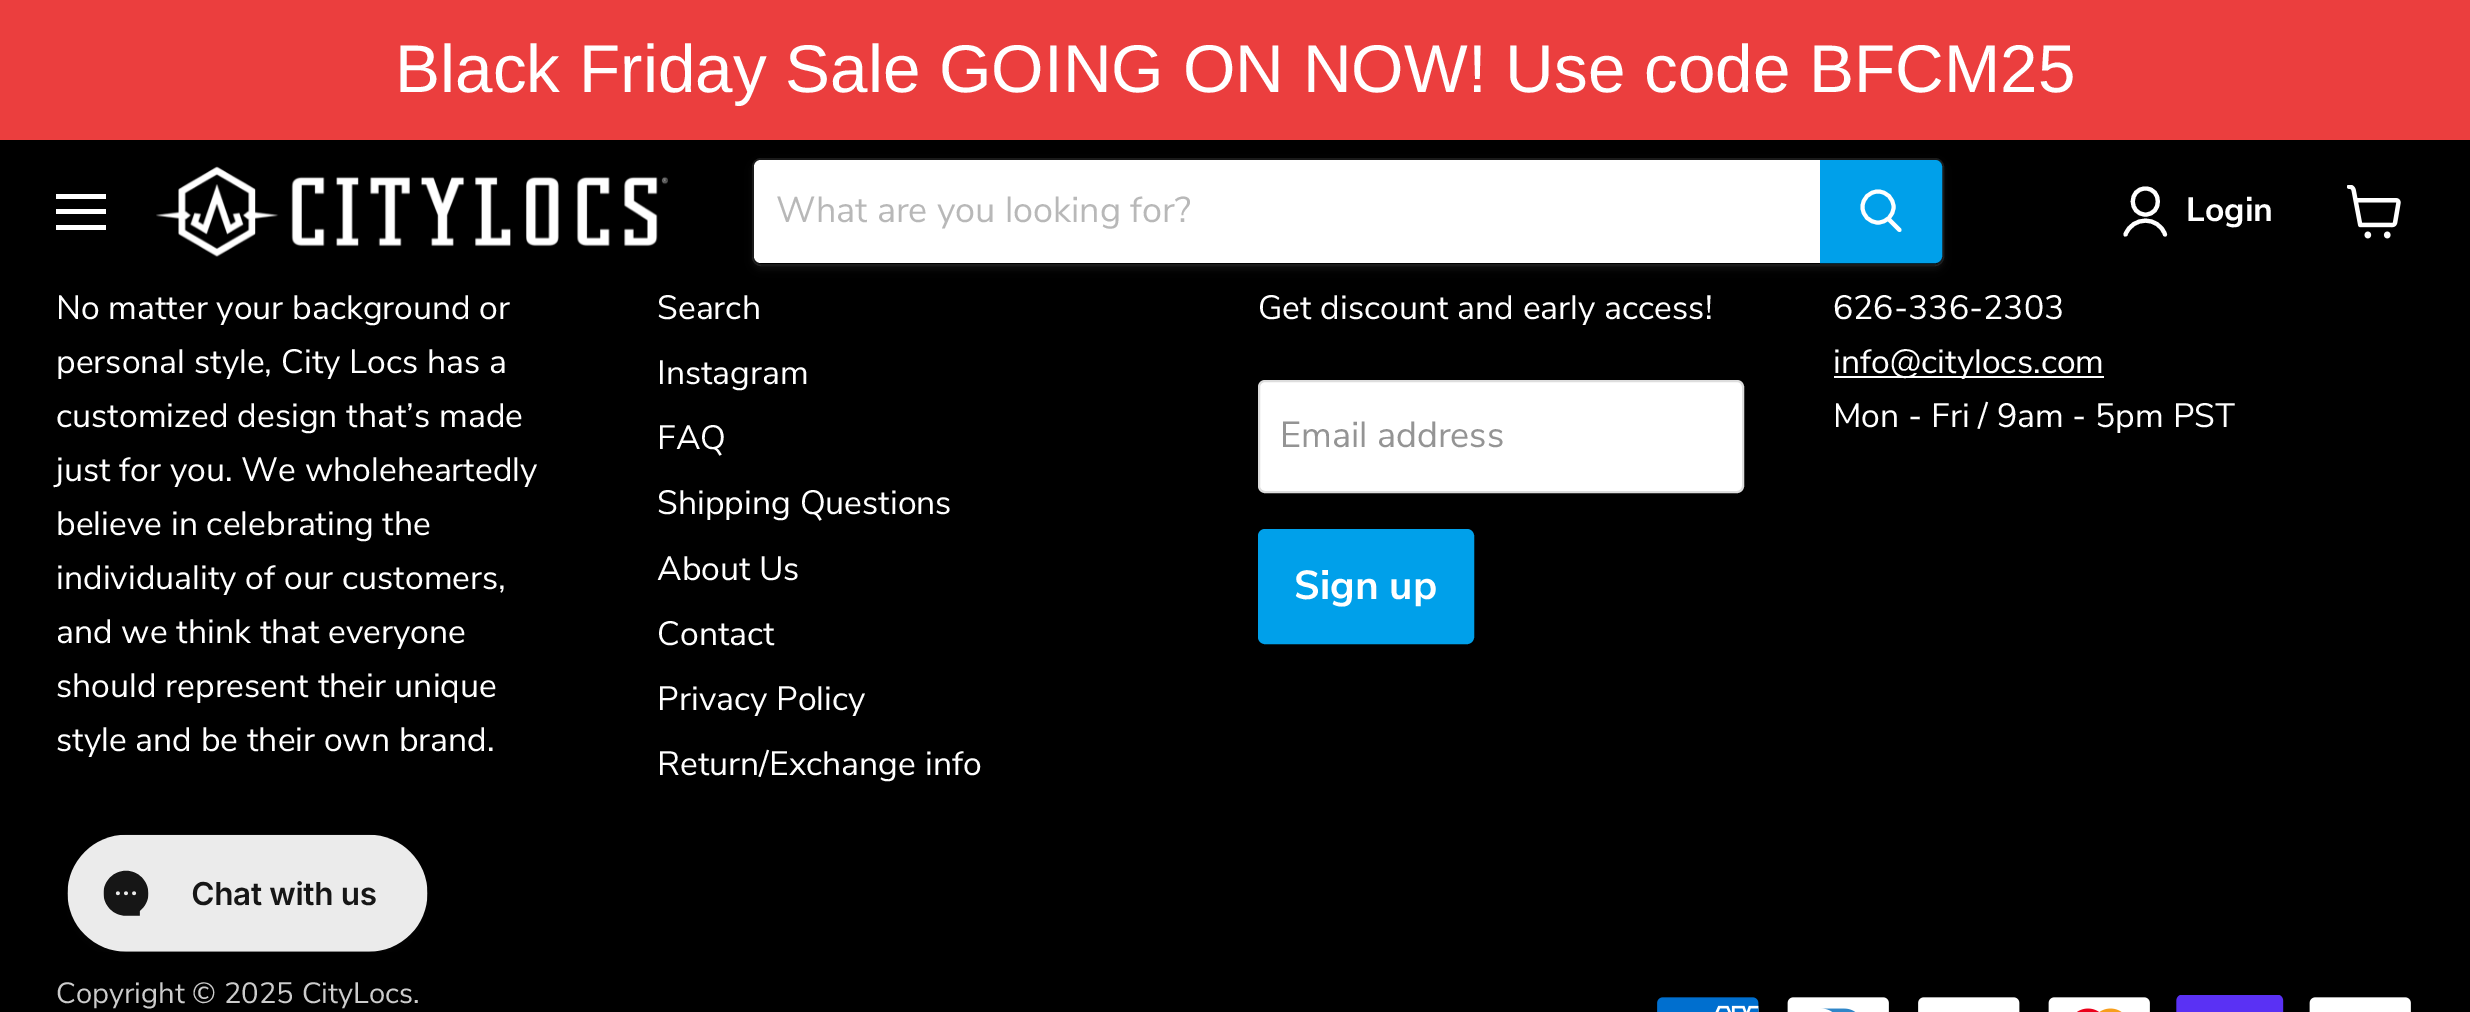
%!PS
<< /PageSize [2470 1012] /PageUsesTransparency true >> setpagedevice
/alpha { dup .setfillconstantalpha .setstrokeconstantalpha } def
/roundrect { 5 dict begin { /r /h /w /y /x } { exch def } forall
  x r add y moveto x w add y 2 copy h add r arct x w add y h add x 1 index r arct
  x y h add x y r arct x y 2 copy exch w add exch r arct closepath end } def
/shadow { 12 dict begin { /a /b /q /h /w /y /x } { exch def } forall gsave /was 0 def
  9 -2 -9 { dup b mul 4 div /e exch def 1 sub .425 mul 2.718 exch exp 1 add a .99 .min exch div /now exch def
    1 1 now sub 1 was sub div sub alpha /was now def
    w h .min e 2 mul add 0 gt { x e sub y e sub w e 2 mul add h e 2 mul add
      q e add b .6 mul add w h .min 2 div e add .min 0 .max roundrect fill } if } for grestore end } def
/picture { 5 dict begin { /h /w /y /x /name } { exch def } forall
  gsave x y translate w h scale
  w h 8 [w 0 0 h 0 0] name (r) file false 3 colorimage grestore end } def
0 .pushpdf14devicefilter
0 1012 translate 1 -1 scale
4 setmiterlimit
0 setgray
0 0 2470 1012 rectfill
0.922 0.243 0.243 setrgbcolor
0 0 2470 140 rectfill
/LiberationSans-Regular [67.5 0 0 -67.5 0 0] selectfont
1 setgray
395 92 moveto (Black Friday Sale GOING ON NOW! Use code BFCM25) show
56 194 50 5 rectfill
56 209 50 5 rectfill
56 225 50 5 rectfill
(img1.rgb) 156 166 512 91 picture
gsave
newpath 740 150 moveto 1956 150 lineto 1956 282 lineto 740 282 lineto closepath 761 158 moveto 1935 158 lineto 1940 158 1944 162 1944 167 curveto 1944 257 lineto 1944 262 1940 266 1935 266 curveto 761 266 lineto 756 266 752 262 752 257 curveto 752 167 lineto 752 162 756 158 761 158 curveto closepath eoclip newpath
0.502 setgray
752 162 1192 108 9 3.5 0.11 shadow
grestore
0.2 alpha
0.502 setgray
2 setlinewidth
753 159 1190 106 8 roundrect stroke
1 alpha
1 setgray
newpath 761 160 moveto 1820 160 lineto 1820 263 lineto 761 263 lineto 757 263 754 260 754 256 curveto 754 167 lineto 754 163 757 160 761 160 curveto closepath fill
/NunitoSans-Regular [36 0 0 -36 0 0] selectfont
0.722 setgray
776 222 moveto (What are you looking for?) show
0 0.627 0.918 setrgbcolor
newpath 1821 161 moveto 1935 161 lineto 1938.5 161 1941 163.5 1941 167 curveto 1941 256 lineto 1941 259.5 1938.5 262 1935 262 curveto 1821 262 lineto closepath gsave fill grestore
stroke
1 setgray
3.9 setlinewidth
1 setlinecap
newpath 1899.5 230 moveto 1889 219.5 lineto stroke
0 setlinecap
newpath 1878 207 15.5 0 360 arc closepath stroke
4.1 setlinewidth
1 setlinecap
1 setlinejoin
newpath 2145.5 214.5 moveto 2162 214.5 2162 188.5 2145.5 188.5 curveto 2128.5 188.5 2128.5 214.5 2145.5 214.5 curveto closepath 2165 234.5 moveto 2158.5 216 2132.5 216 2125.5 234.5 curveto stroke
/NunitoSans-Bold [33.75 0 0 -33.75 0 0] selectfont
2186 221 moveto (Login) show
(img2.rgb) 2347 185 54 54 picture
/NunitoSans-Regular [33.75 0 0 -33.75 0 0] selectfont
56 319 moveto (No matter your background or) show
56 373 moveto (personal style, City Locs has a) show
56 427 moveto (customized design that’s made) show
56 481 moveto (just for you. We wholeheartedly) show
56 535 moveto (believe in celebrating the) show
56 589 moveto (individuality of our customers,) show
56 643 moveto (and we think that everyone) show
56 697 moveto (should represent their unique) show
56 751 moveto (style and be their own brand.) show
657 319 moveto (Search) show
657 384 moveto (Instagram) show
657 449 moveto (FAQ) show
657 514 moveto (Shipping Questions) show
657 580 moveto (About Us) show
657 645 moveto (Contact) show
657 710 moveto (Privacy Policy) show
657 775 moveto (Return/Exchange info) show
1258 319 moveto (Get discount and early access!) show
1259 381 484 111 6 roundrect gsave fill grestore
0.867 setgray
2 setlinewidth
0 setlinecap
0 setlinejoin
stroke
/NunitoSans-Regular [36 0 0 -36 0 0] selectfont
0.58 setgray
1280 447 moveto (Email address) show
0 0.627 0.918 setrgbcolor
1259 530 214 113 6 roundrect gsave fill grestore
stroke
/NunitoSans-Bold [40.5 0 0 -40.5 0 0] selectfont
1 setgray
1294 599 moveto (Sign up) show
/NunitoSans-Regular [33.75 0 0 -33.75 0 0] selectfont
1833 319 moveto (626-336-2303) show
1834 376 270 2 rectfill
1833 373 moveto (info@citylocs.com) show
1833 427 moveto (Mon - Fri / 9am - 5pm PST) show
/NunitoSans-Regular [29.25 0 0 -29.25 0 0] selectfont
0.8 setgray
56 1003 moveto (Copyright © 2025 CityLocs.) show
(img3.rgb) 1657 997 102 15 picture
(img4.rgb) 1787 997 102 15 picture
(img5.rgb) 1918 997 102 15 picture
(img6.rgb) 2048 997 102 15 picture
(img7.rgb) 2176 995 108 17 picture
(img8.rgb) 2309 997 102 15 picture
(img9.rgb) 67 834 361 118 picture
.poppdf14devicefilter showpage
